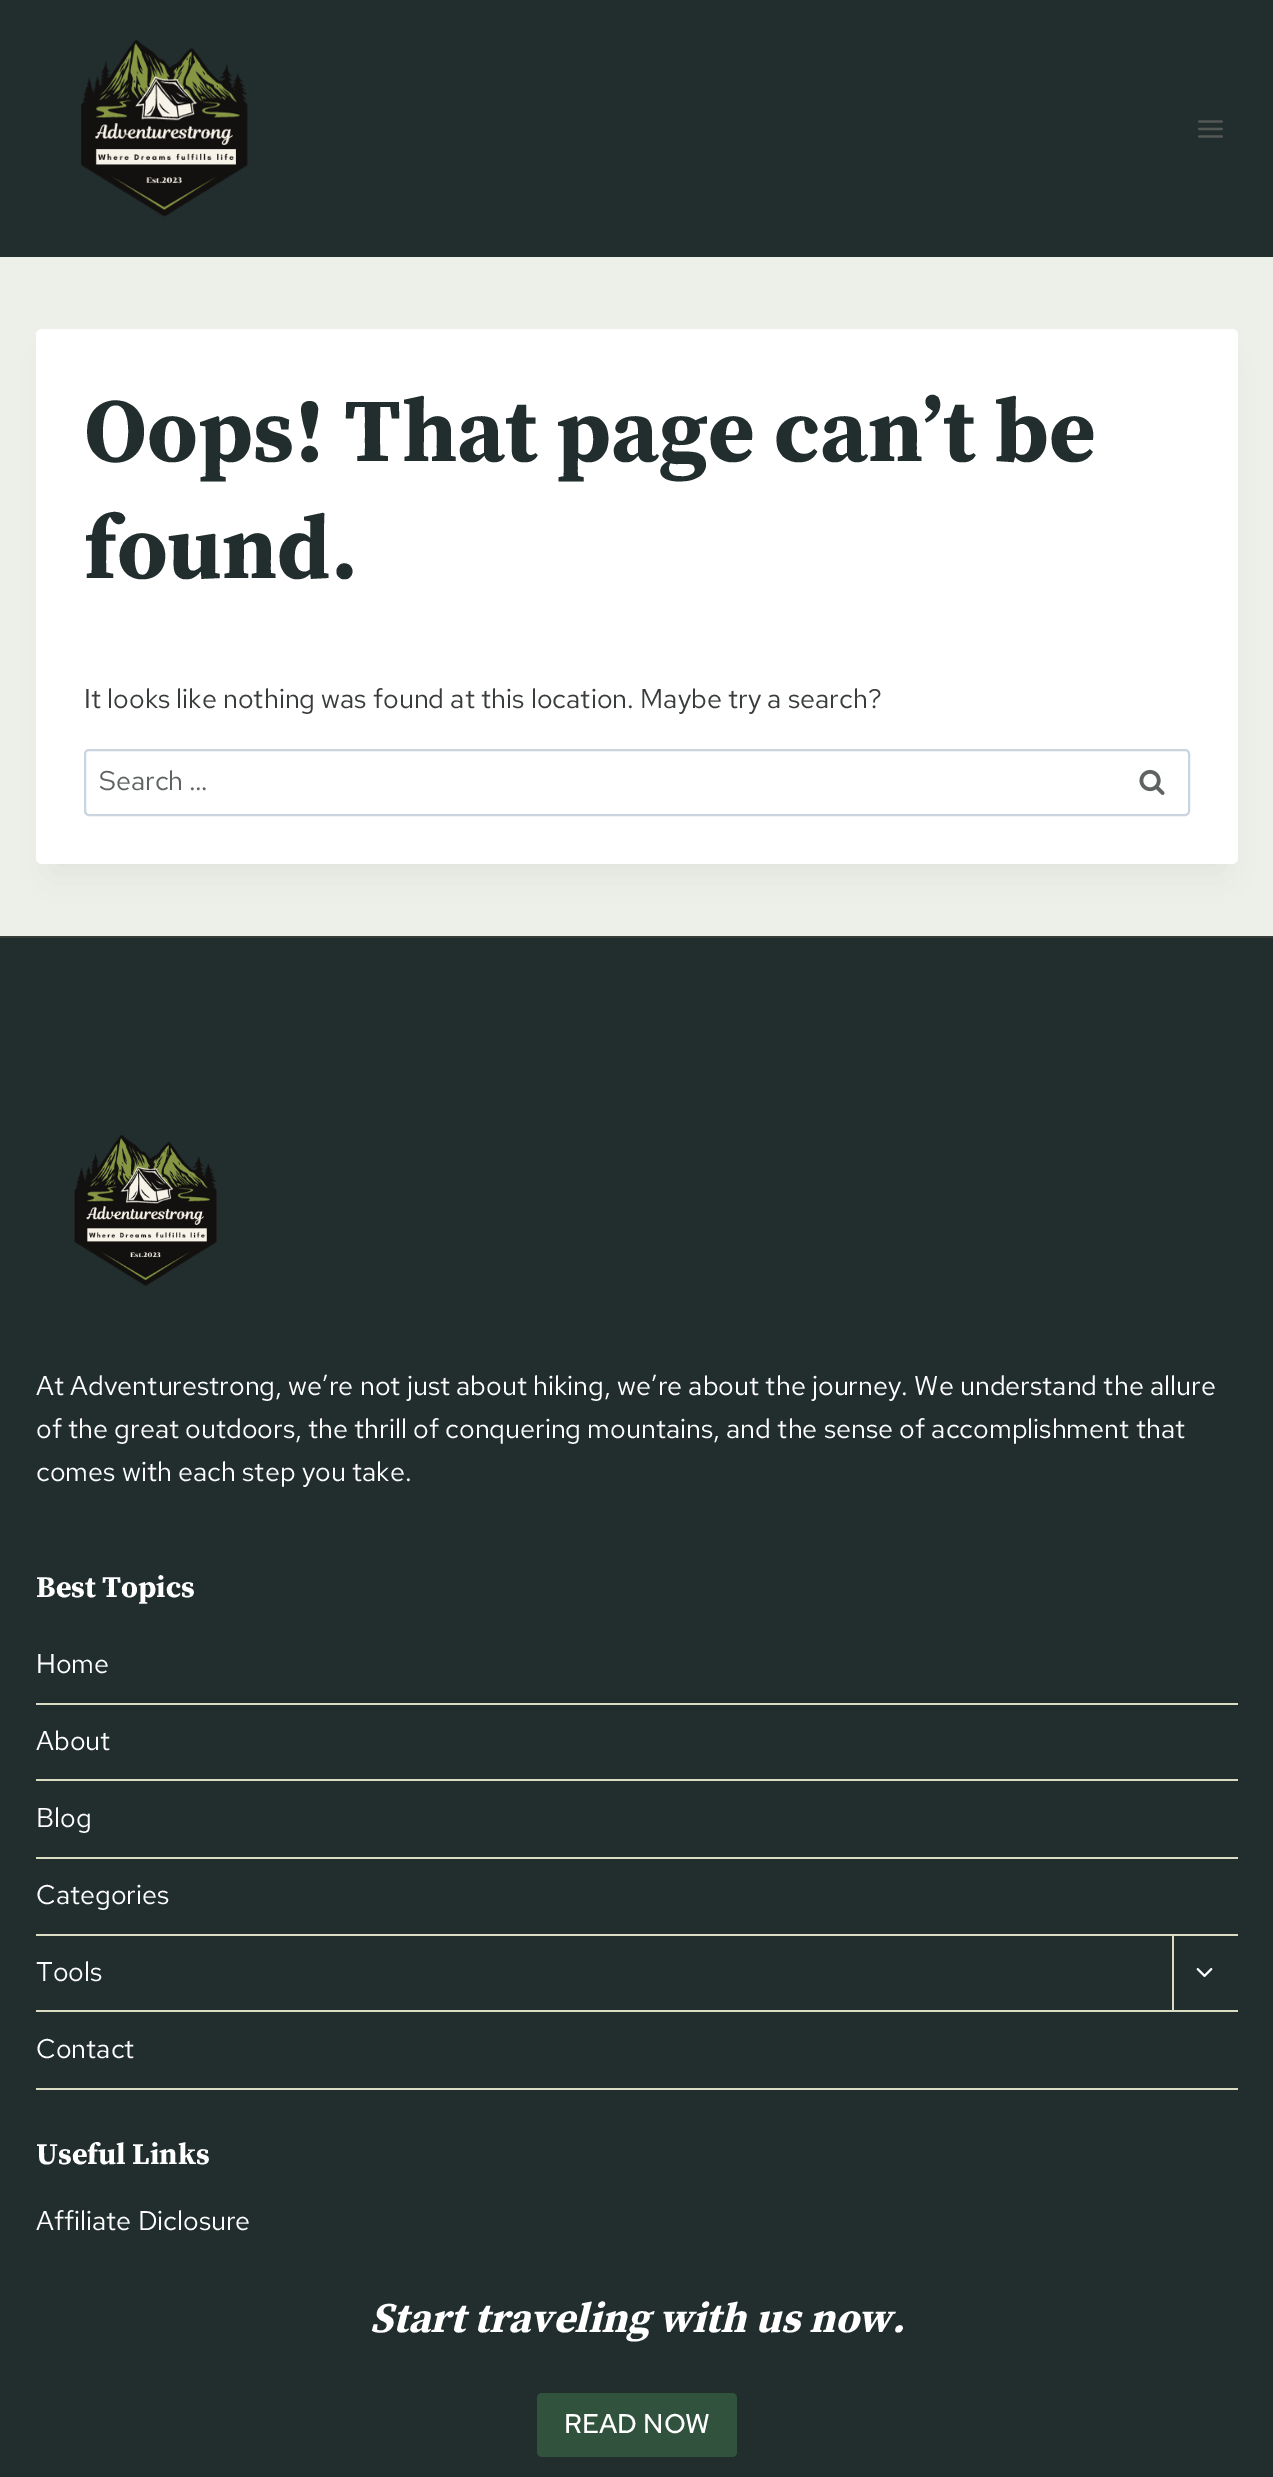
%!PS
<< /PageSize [1273 2477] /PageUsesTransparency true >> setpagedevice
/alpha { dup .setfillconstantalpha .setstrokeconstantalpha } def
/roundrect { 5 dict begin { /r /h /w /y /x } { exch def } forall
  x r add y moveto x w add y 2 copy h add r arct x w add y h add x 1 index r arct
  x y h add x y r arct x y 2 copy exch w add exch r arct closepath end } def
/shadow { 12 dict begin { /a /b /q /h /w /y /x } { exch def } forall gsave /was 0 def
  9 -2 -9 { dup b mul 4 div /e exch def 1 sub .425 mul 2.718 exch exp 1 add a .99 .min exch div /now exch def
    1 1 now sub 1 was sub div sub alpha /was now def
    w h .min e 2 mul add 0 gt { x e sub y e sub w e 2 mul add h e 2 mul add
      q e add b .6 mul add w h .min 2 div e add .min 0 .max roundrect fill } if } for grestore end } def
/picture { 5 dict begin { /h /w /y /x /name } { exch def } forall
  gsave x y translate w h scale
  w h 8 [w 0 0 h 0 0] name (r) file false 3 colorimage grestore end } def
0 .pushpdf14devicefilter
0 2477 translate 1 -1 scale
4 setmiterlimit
0.929 0.941 0.91 setrgbcolor
0 0 1273 2477 rectfill
0.129 0.18 0.176 setrgbcolor
0 0 1273 257 rectfill
(img1.rgb) 81 39 167 178 picture
(img2.rgb) 1198 120 25 18 picture
0 setgray
51 366 1172 506 0 19 0.05 shadow
1 setgray
36 329 1202 535 6 roundrect fill
/SourceSerifPro-Bold [90 0 0 -90 0 0] selectfont
0.129 0.18 0.176 setrgbcolor
84 461 moveto (Oops! That page can’t be) show
84 578 moveto (found.) show
/RedHatText-Regular [27 0 0 -27 0 0] selectfont
0.224 0.239 0.227 setrgbcolor
84 708 moveto (It looks like nothing was found at this location. Maybe try a search?) show
0.796 0.835 0.878 setrgbcolor
2 setlinewidth
85 750 1104 65 4 roundrect stroke
0.373 0.388 0.376 setrgbcolor
99 790 moveto (Search …) show
(img3.rgb) 1139 769 26 26 picture
0.129 0.18 0.176 setrgbcolor
0 938 1273 1539 rectfill
0.224 0.239 0.227 setrgbcolor
0 936 1273 2 rectfill
(img4.rgb) 74 1134 143 152 picture
1 setgray
36 1395 moveto (At Adventurestrong, we’re not just about hiking, we’re about the journey. We understand the allure) show
36 1438 moveto (of the great outdoors, the thrill of conquering mountains, and the sense of accomplishment that) show
36 1481 moveto (comes with each step you take.) show
/SourceSerifPro-Bold [30 0 0 -30 0 0] selectfont
36 1597 moveto (Best Topics) show
0.855 0.867 0.769 setrgbcolor
36 1703 1202 2 rectfill
/RedHatText-Regular [27 0 0 -27 0 0] selectfont
1 setgray
36 1673 moveto (Home) show
0.855 0.867 0.769 setrgbcolor
36 1779 1202 2 rectfill
1 setgray
36 1750 moveto (About) show
0.855 0.867 0.769 setrgbcolor
36 1857 1202 2 rectfill
1 setgray
36 1827 moveto (Blog) show
0.855 0.867 0.769 setrgbcolor
36 1934 1202 2 rectfill
1 setgray
36 1904 moveto (Categories) show
0.855 0.867 0.769 setrgbcolor
36 2010 1202 2 rectfill
1 setgray
36 1981 moveto (Tools) show
0.855 0.867 0.769 setrgbcolor
1172 1935 2 77 rectfill
(img5.rgb) 1196 1968 17 9 picture
36 2088 1202 2 rectfill
1 setgray
36 2058 moveto (Contact) show
/SourceSerifPro-Bold [30 0 0 -30 0 0] selectfont
36 2164 moveto (Useful Links) show
/RedHatText-Regular [27 0 0 -27 0 0] selectfont
36 2230 moveto (Affiliate Diclosure) show
/SourceSerifPro-BoldItalic [42 0 0 -42 0 0] selectfont
370 2332 moveto (Start traveling with us now.) show
0.192 0.325 0.239 setrgbcolor
537 2393 200 64 5 roundrect fill
/RedHatText-Medium [27 0 0 -27 0 0] selectfont
1 setgray
564 2433 moveto (READ NOW) show
.poppdf14devicefilter showpage
